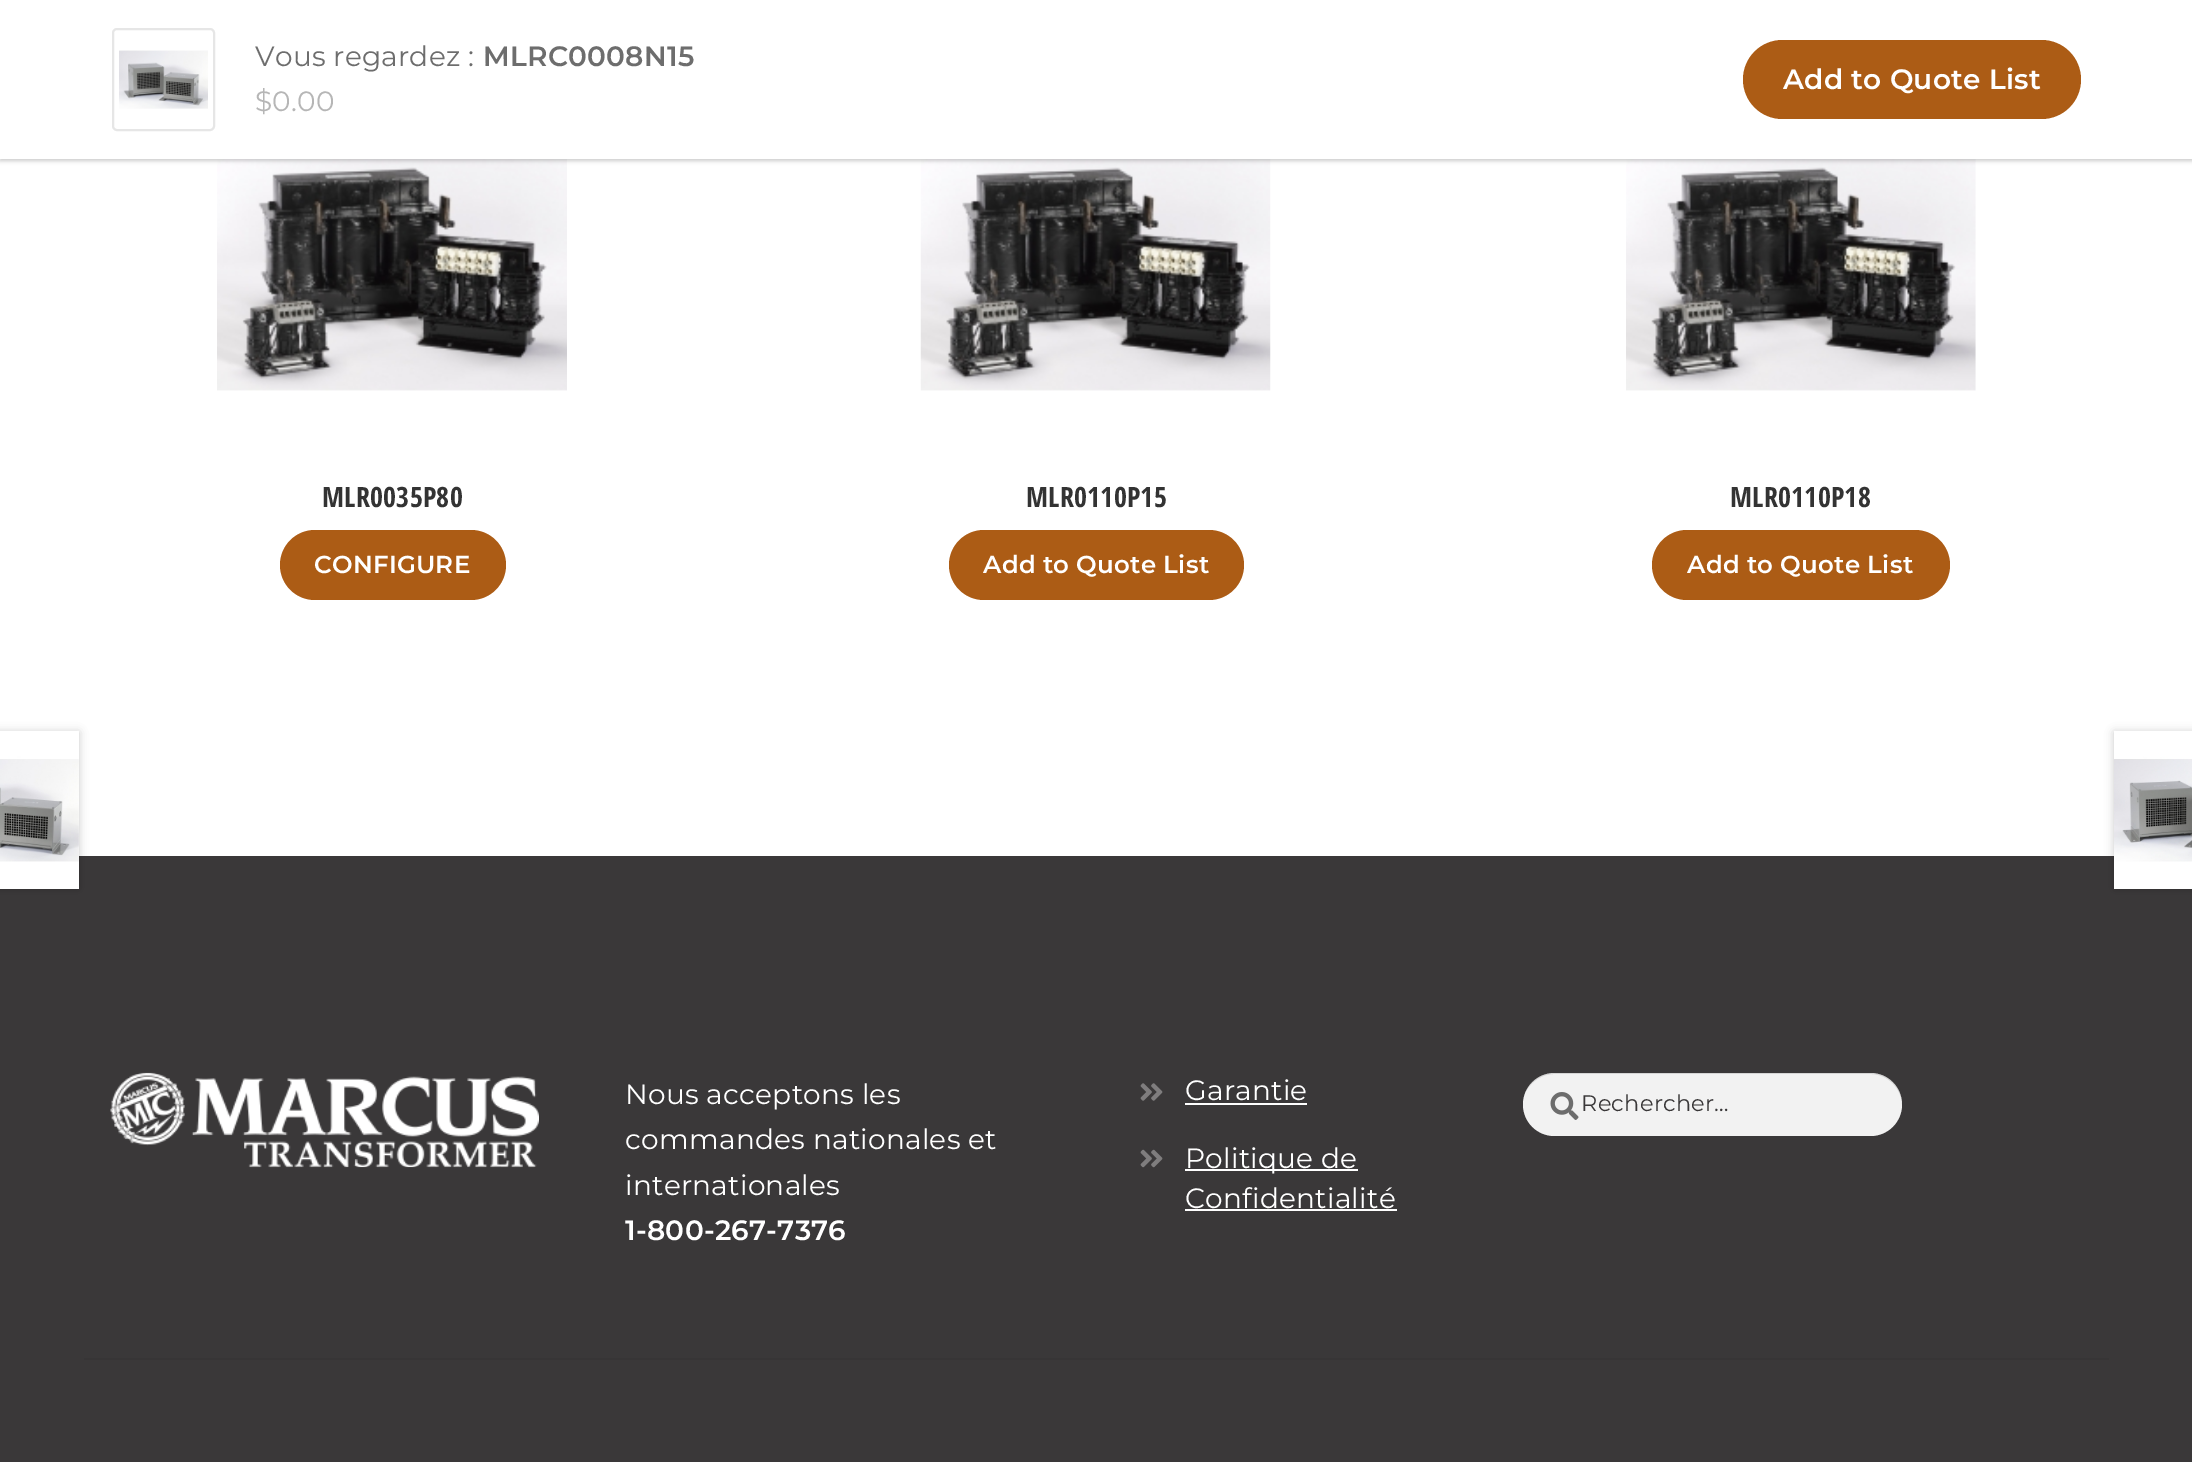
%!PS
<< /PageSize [2192 1462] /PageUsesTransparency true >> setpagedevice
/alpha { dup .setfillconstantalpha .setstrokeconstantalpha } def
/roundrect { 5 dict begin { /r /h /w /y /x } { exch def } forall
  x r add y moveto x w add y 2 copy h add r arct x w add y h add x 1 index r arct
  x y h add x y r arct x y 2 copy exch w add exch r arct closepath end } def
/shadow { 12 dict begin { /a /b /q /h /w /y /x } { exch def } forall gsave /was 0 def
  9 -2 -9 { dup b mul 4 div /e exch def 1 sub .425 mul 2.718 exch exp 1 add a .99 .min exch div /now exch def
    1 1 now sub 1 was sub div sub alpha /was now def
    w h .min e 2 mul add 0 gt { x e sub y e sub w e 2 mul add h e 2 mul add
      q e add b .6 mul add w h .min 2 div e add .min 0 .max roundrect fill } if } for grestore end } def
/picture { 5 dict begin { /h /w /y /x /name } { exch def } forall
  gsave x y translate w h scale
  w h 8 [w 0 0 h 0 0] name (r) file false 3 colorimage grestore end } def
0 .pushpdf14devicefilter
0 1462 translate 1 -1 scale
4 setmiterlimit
1 setgray
0 0 2192 1462 rectfill
(img2.rgb) 217 159 350 232 picture
(img3.rgb) 920 159 351 232 picture
(img4.rgb) 1626 159 350 232 picture
0 setgray
0 2 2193 159 0 2 0.2 shadow
1 setgray
0 0 2192 159 rectfill
0.902 setgray
2 setlinewidth
113 29 101 101 4 roundrect stroke
(img1.rgb) 119 50 89 59 picture
/Montserrat-Regular [28 0 0 -28 0 0] selectfont
0.427 setgray
255 66 moveto 0.25 0 (Vous regardez :) ashow
/Montserrat-SemiBold [28 0 0 -28 0 0] selectfont
483 66 moveto 0.25 0 (MLRC0008N15) ashow
/Montserrat-Regular [28 0 0 -28 0 0] selectfont
0.714 setgray
255 111 moveto 0.25 0 ($0.00) ashow
0.675 0.361 0.082 setrgbcolor
1743 40 338 79 39.5 roundrect fill
/Montserrat-SemiBold [28 0 0 -28 0 0] selectfont
1 setgray
1783 89 moveto 0.25 0 (Add to Quote List) ashow
/OpenSansCondensed-Bold [28 0 0 -28 0 0] selectfont
0.2 setgray
322 507 moveto 0.25 0 (MLR0035P80) ashow
0.675 0.361 0.082 setrgbcolor
280 530 226 70 35 roundrect fill
/Montserrat-SemiBold [24.5 0 0 -24.5 0 0] selectfont
1 setgray
314 573 moveto 0.25 0 (CONFIGURE) ashow
/OpenSansCondensed-Bold [28 0 0 -28 0 0] selectfont
0.2 setgray
1026 507 moveto 0.25 0 (MLR0110P15) ashow
0.675 0.361 0.082 setrgbcolor
949 530 295 70 35 roundrect fill
/Montserrat-SemiBold [24.5 0 0 -24.5 0 0] selectfont
1 setgray
983 573 moveto 0.25 0 (Add to Quote List) ashow
/OpenSansCondensed-Bold [28 0 0 -28 0 0] selectfont
0.2 setgray
1730 507 moveto 0.25 0 (MLR0110P18) ashow
0.675 0.361 0.082 setrgbcolor
1652 530 298 70 35 roundrect fill
/Montserrat-SemiBold [24.5 0 0 -24.5 0 0] selectfont
1 setgray
1687 573 moveto 0.25 0 (Add to Quote List) ashow
0.227 0.22 0.224 setrgbcolor
0 856 2192 606 rectfill
0 setgray
-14 732 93 157 0 4.5 0.2 shadow
1 setgray
0 732 79 157 rectfill
(img5.rgb) 0 731 79 131 picture
0 setgray
2114 732 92 157 0 4.5 0.2 shadow
1 setgray
2114 862 78 27 rectfill
(img6.rgb) 2114 731 78 131 picture
0.216 0.208 0.212 setrgbcolor
84 1358 2025 2 rectfill
(img7.rgb) 110 1072 429 96 picture
/Montserrat-Regular [28 0 0 -28 0 0] selectfont
1 setgray
625 1104 moveto 0.25 0 (Nous acceptons les) ashow
625 1149 moveto 0.25 0 (commandes nationales et) ashow
625 1195 moveto 0.25 0 (internationales) ashow
/Montserrat-SemiBold [28 0 0 -28 0 0] selectfont
625 1240 moveto 0.25 0 (1-800-267-7376) ashow
(img8.rgb) 1140 1083 23 18 picture
/Montserrat-Regular [28 0 0 -28 0 0] selectfont
1185 1100 moveto 0.25 0 (Garantie) ashow
1185 1103 122 2 rectfill
(img9.rgb) 1140 1149 23 19 picture
1185 1169 173 2 rectfill
1185 1168 moveto 0.25 0 (Politique de) ashow
1185 1208 moveto 0.25 0 (Confidentialité) ashow
1185 1209 212 2 rectfill
0.949 setgray
1523 1073 379 63 31.5 roundrect fill
0.12 alpha
0 setgray
newpath 1554 1074 moveto 1871 1074 lineto 1888 1074 1902 1089 1902 1105 curveto 1902 1104 lineto 1902 1087 1888 1073 1870 1073 curveto 1554 1073 lineto 1542 1073 1531 1080 1526 1091 curveto 1532 1081 1542 1074 1554 1074 curveto closepath fill
1 alpha
(img10.rgb) 1550 1092 29 28 picture
/Montserrat-Regular [22.5 0 0 -22.5 0 0] selectfont
0.227 0.22 0.224 setrgbcolor
1581 1111 moveto 0.25 0 (Rechercher…) ashow
.poppdf14devicefilter showpage
